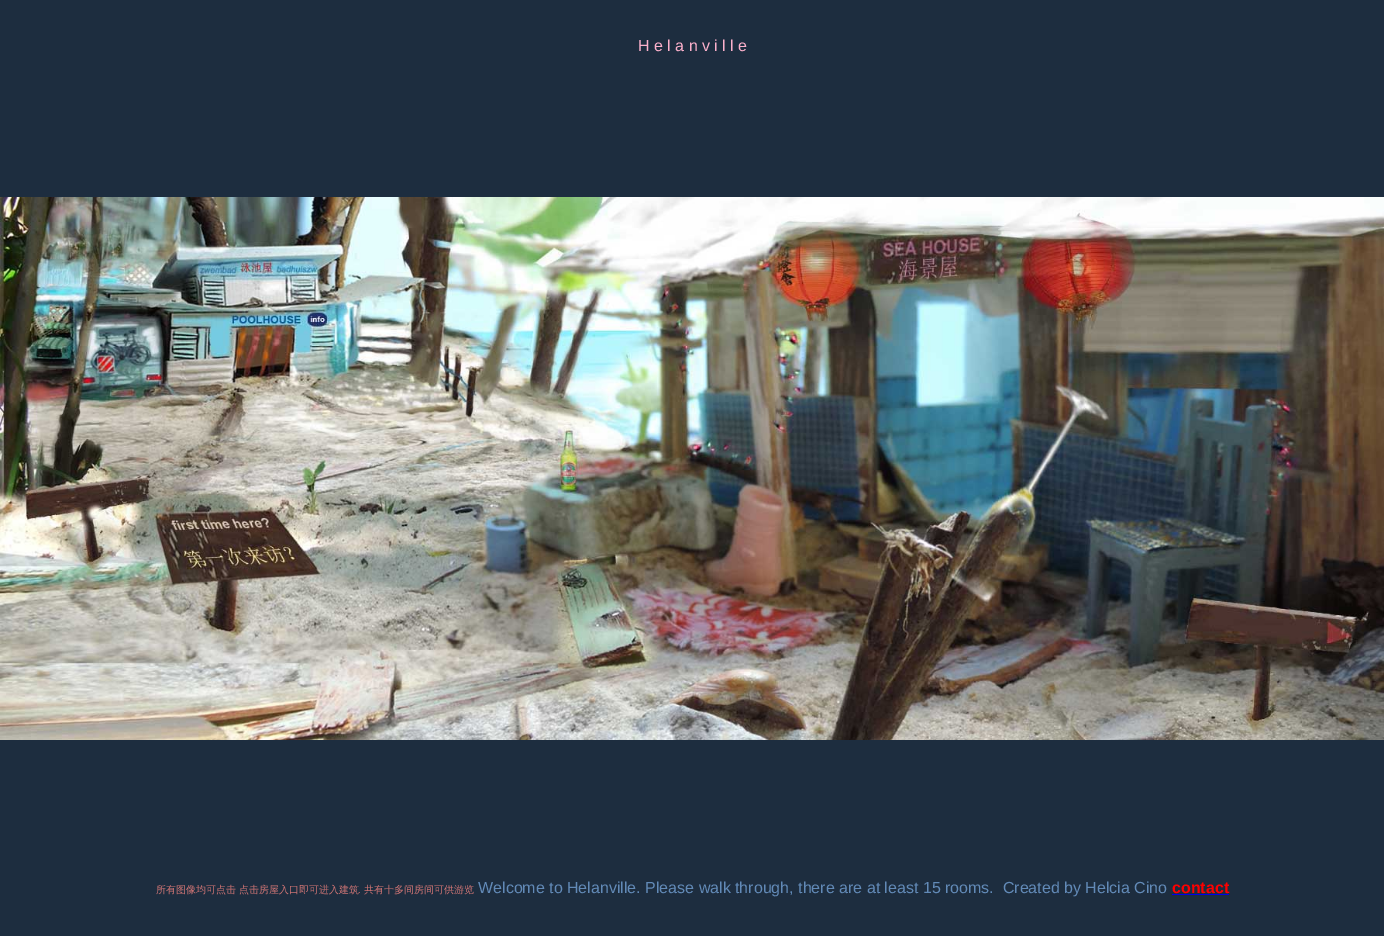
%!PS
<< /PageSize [1384 936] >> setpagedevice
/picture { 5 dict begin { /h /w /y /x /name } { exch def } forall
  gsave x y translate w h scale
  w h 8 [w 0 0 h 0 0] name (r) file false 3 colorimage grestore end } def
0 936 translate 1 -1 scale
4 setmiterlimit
0.114 0.176 0.247 setrgbcolor
0 0 1384 936 rectfill
/LiberationSans-Regular [16 0 0 -16 0 0] selectfont
0.988 0.694 0.8 setrgbcolor
638 51 moveto (H e l a n v i l l e) show
(img1.rgb) 0 197 1384 543 picture
/WenQuanYiZenHei-Medium [10 0 0 -10 0 0] selectfont
0.816 0.459 0.459 setrgbcolor
156 893 moveto (所有图像均可点击 点击房屋入口即可进入建筑) show
/LiberationSans-Regular [10 0 0 -10 0 0] selectfont
358 893 moveto (.) show
/WenQuanYiZenHei-Medium [10 0 0 -10 0 0] selectfont
364 893 moveto (共有十多间房间可供游览) show
/LiberationSans-Regular [16 0 0 -16 0 0] selectfont
0.384 0.541 0.718 setrgbcolor
478 893 moveto (Welcome to Helanville. Please walk through, there are at least 15 rooms.  Created by Helcia Cino) show
/LiberationSans-Bold [16 0 0 -16 0 0] selectfont
1 0 0 setrgbcolor
1172 893 moveto (contact) show
0 0 0.933 setrgbcolor
1172 894 57 1 rectfill
showpage
